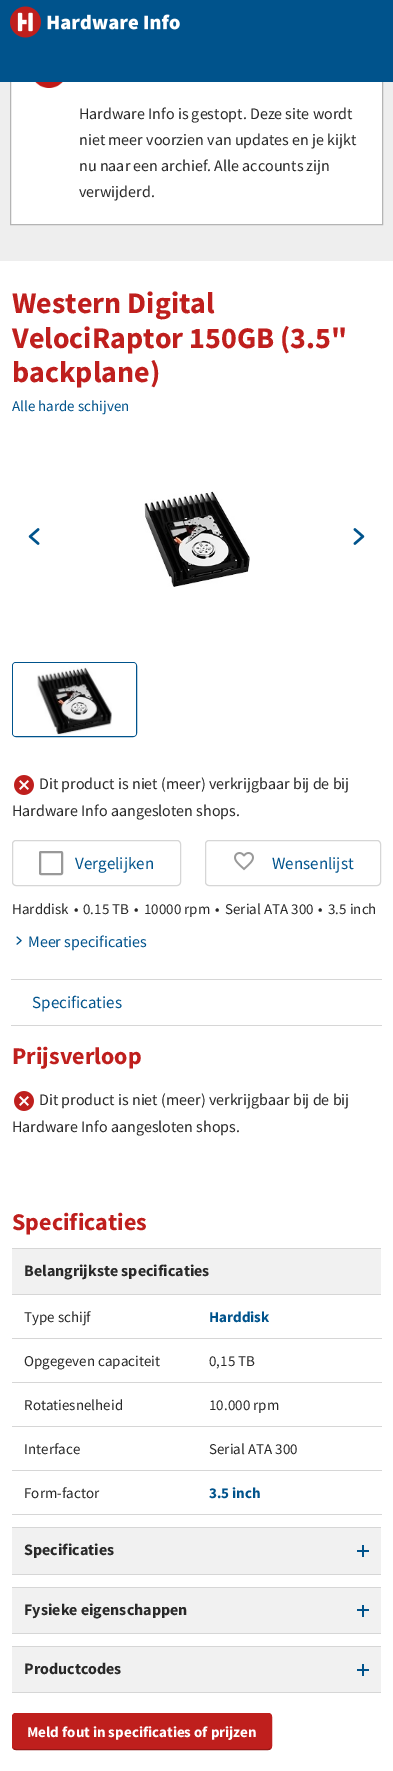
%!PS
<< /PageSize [393 1771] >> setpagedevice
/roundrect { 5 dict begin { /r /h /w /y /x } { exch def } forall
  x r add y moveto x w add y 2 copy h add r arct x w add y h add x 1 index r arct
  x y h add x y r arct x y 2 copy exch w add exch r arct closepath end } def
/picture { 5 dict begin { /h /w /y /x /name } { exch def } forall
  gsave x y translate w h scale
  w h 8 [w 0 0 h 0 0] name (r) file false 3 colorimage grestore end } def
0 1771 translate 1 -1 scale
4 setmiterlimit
0.933 setgray
0 0 393 1771 rectfill
1 setgray
11 82 371 142 rectfill
0.706 setgray
10.5 31.5 372 193 rectstroke
0 0.325 0.549 setrgbcolor
0 0 393 82 rectfill
(img1.rgb) 10 6 170 32 picture
(img2.rgb) 35 82 28 6 picture
/SourceSansPro-Regular [16 0 0 -16 0 0] selectfont
0.161 setgray
79 119 moveto (Hardware Info is gestopt. Deze site wordt) show
79 145 moveto (niet meer voorzien van updates en je kijkt) show
79 171 moveto (nu naar een archief. Alle accounts zijn) show
79 197 moveto (verwijderd.) show
1 setgray
0 261 393 1510 rectfill
/SourceSansPro-Bold [30 0 0 -30 0 0] selectfont
0.749 0.122 0.114 setrgbcolor
12 313 moveto (Western Digital) show
12 348 moveto (VelociRaptor 150GB \(3.5") show
12 382 moveto (backplane\)) show
/SourceSansPro-Regular [15 0 0 -15 0 0] selectfont
0 0.325 0.549 setrgbcolor
12 411 moveto (Alle harde schijven) show
(img3.rgb) 28 528 12 17 picture
(img4.rgb) 144 491 106 96 picture
(img5.rgb) 353 528 12 17 picture
12.5 662.5 124 74 3.5 roundrect stroke
(img6.rgb) 13 663 123 73 picture
(img7.rgb) 14 775 20 20 picture
/SourceSansPro-Regular [16 0 0 -16 0 0] selectfont
0.161 setgray
39 789 moveto (Dit product is niet \(meer\) verkrijgbaar bij de bij) show
12 816 moveto (Hardware Info aangesloten shops.) show
0.839 setgray
12.5 840.5 168 45 3.5 roundrect stroke
0.6 setgray
2 setlinewidth
40 852 22 22 1 roundrect stroke
/SourceSansPro-Regular [17 0 0 -17 0 0] selectfont
0 0.325 0.549 setrgbcolor
75 869 moveto (Vergelijken) show
0.839 setgray
1 setlinewidth
205.5 840.5 175 45 3.5 roundrect stroke
(img8.rgb) 234 852 20 19 picture
0 0.325 0.549 setrgbcolor
272 869 moveto (Wensenlijst) show
/SourceSansPro-Regular [15 0 0 -15 0 0] selectfont
0.161 setgray
12 914 moveto (Harddisk) show
74 914 moveto (•) show
83 914 moveto (0.15 TB) show
134 914 moveto (•) show
144 914 moveto (10000 rpm) show
215 914 moveto (•) show
225 914 moveto (Serial ATA 300) show
318 914 moveto (•) show
328 914 moveto (3.5 inch) show
(img9.rgb) 16 936 6 9 picture
/SourceSansPro-Regular [16 0 0 -16 0 0] selectfont
0 0.325 0.549 setrgbcolor
28 947 moveto (Meer specificaties) show
0.839 setgray
11 979 371 1 rectfill
11 1025 371 1 rectfill
/SourceSansPro-Regular [17 0 0 -17 0 0] selectfont
0 0.325 0.549 setrgbcolor
32 1008 moveto (Specificaties) show
/SourceSansPro-Bold [24 0 0 -24 0 0] selectfont
0.749 0.122 0.114 setrgbcolor
12 1064 moveto (Prijsverloop) show
(img7.rgb) 14 1091 20 20 picture
/SourceSansPro-Regular [16 0 0 -16 0 0] selectfont
0.161 setgray
39 1105 moveto (Dit product is niet \(meer\) verkrijgbaar bij de bij) show
12 1132 moveto (Hardware Info aangesloten shops.) show
/SourceSansPro-Bold [24 0 0 -24 0 0] selectfont
0.749 0.122 0.114 setrgbcolor
12 1230 moveto (Specificaties) show
0.945 setgray
12 1249 369 45 rectfill
0.839 setgray
12 1248 369 1 rectfill
12 1294 369 1 rectfill
/SourceSansPro-Bold [16 0 0 -16 0 0] selectfont
0.161 setgray
24 1276 moveto (Belangrijkste specificaties) show
0.839 setgray
12 1514 370 1 rectfill
/SourceSansPro-Regular [15 0 0 -15 0 0] selectfont
0.161 setgray
24 1322 moveto (Type schijf) show
0.839 setgray
12 1338 370 1 rectfill
/SourceSansPro-Bold [15 0 0 -15 0 0] selectfont
0 0.325 0.549 setrgbcolor
209 1322 moveto (Harddisk) show
/SourceSansPro-Regular [15 0 0 -15 0 0] selectfont
0.161 setgray
24 1366 moveto (Opgegeven capaciteit) show
0.839 setgray
12 1382 370 1 rectfill
0.161 setgray
209 1366 moveto (0,15 TB) show
24 1410 moveto (Rotatiesnelheid) show
0.839 setgray
12 1426 370 1 rectfill
0.161 setgray
209 1410 moveto (10.000 rpm) show
24 1454 moveto (Interface) show
0.839 setgray
12 1470 370 1 rectfill
0.161 setgray
209 1454 moveto (Serial ATA 300) show
24 1498 moveto (Form-factor) show
/SourceSansPro-Bold [15 0 0 -15 0 0] selectfont
0 0.325 0.549 setrgbcolor
209 1498 moveto (3.5 inch) show
0.945 setgray
12 1528 369 46 rectfill
0.839 setgray
12 1527 369 1 rectfill
12 1574 369 1 rectfill
/SourceSansPro-Bold [16 0 0 -16 0 0] selectfont
0.161 setgray
24 1555 moveto (Specificaties) show
0 0.325 0.549 setrgbcolor
357 1550 12 2 rectfill
362 1545 2 12 rectfill
0.945 setgray
12 1588 369 45 rectfill
0.839 setgray
12 1587 369 1 rectfill
12 1633 369 1 rectfill
0.161 setgray
24 1615 moveto (Fysieke eigenschappen) show
0 0.325 0.549 setrgbcolor
357 1609 12 2 rectfill
362 1605 2 12 rectfill
0.945 setgray
12 1647 369 45 rectfill
0.839 setgray
12 1646 369 1 rectfill
12 1692 369 1 rectfill
0.161 setgray
24 1674 moveto (Productcodes) show
0 0.325 0.549 setrgbcolor
357 1669 12 2 rectfill
362 1664 2 12 rectfill
0.749 0.122 0.114 setrgbcolor
12 1713 260 37 4 roundrect fill
0.576 0.094 0.086 setrgbcolor
newpath 270.5 1748.5 moveto 270 1749 269 1749.5 268 1749.5 curveto 16 1749.5 lineto 15 1749.5 14 1749 13.5 1748.5 curveto stroke
0.749 0.122 0.114 setrgbcolor
newpath 13.5 1748.5 moveto 13 1748 12.5 1747 12.5 1746 curveto 12.5 1717 lineto 12.5 1716 13 1715 13.5 1714.5 curveto 14 1714 15 1713.5 16 1713.5 curveto 268 1713.5 lineto 269 1713.5 270 1714 270.5 1714.5 curveto 271 1715 271.5 1716 271.5 1717 curveto 271.5 1746 lineto 271.5 1747 271 1748 270.5 1748.5 curveto stroke
/SourceSansPro-Bold [15 0 0 -15 0 0] selectfont
1 setgray
27 1737 moveto (Meld fout in specificaties of prijzen) show
showpage
